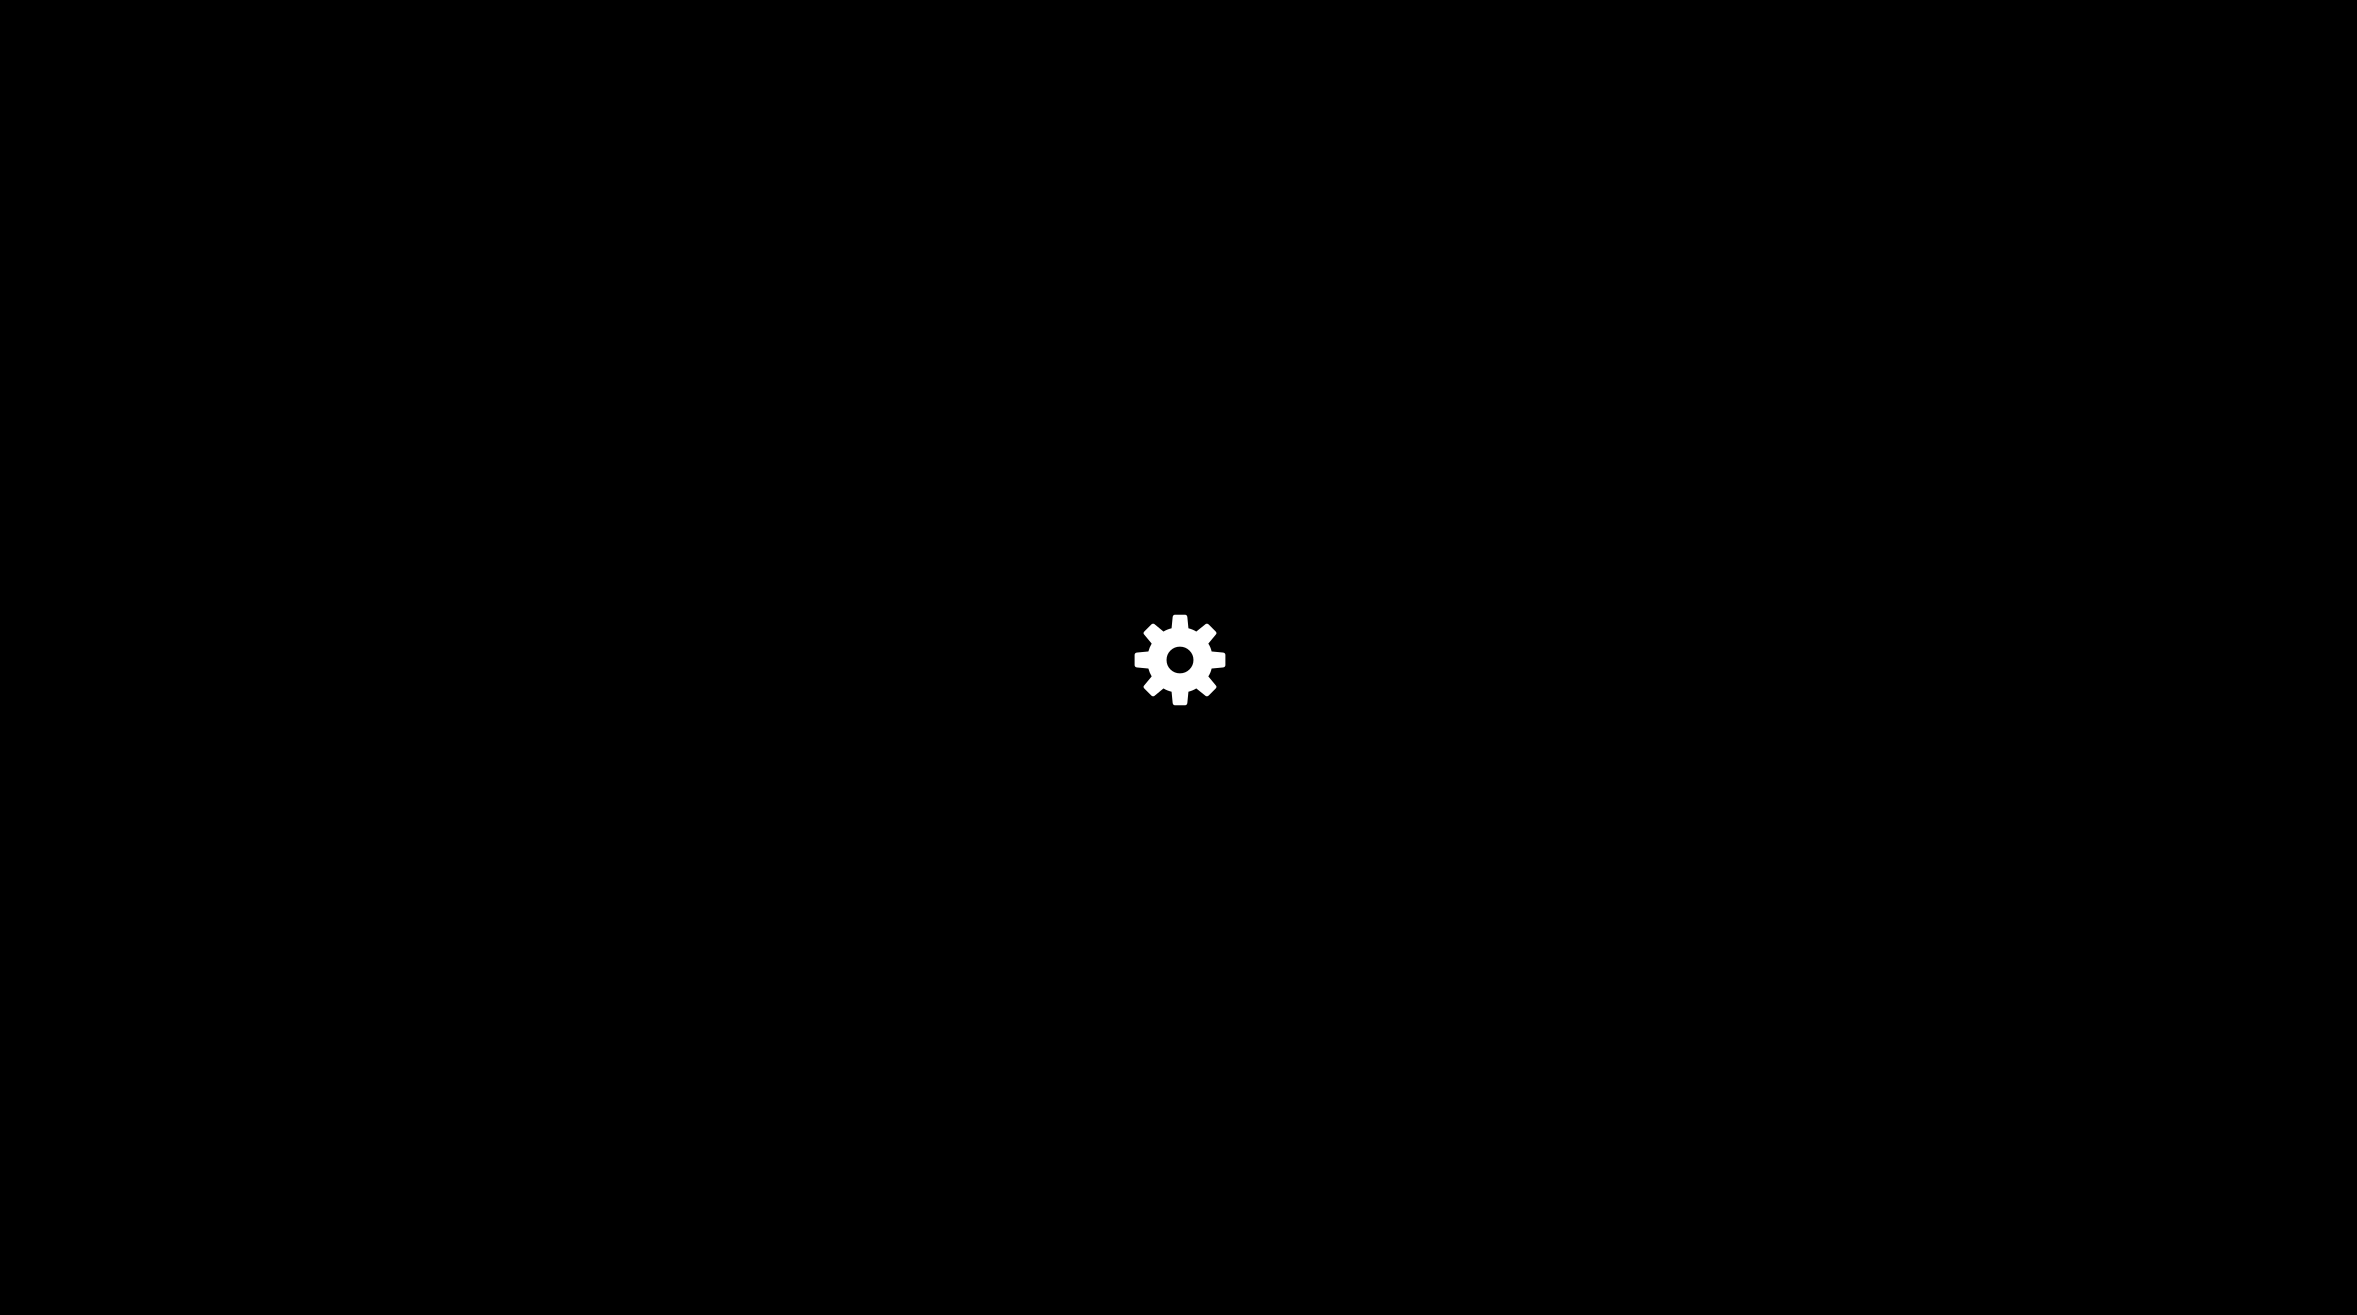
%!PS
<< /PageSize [2357 1315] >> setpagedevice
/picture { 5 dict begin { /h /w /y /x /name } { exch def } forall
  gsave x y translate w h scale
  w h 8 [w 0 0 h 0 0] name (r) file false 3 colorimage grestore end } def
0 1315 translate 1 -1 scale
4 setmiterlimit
0 setgray
0 0 2357 1315 rectfill
(img1.rgb) 1134 614 92 92 picture
showpage
